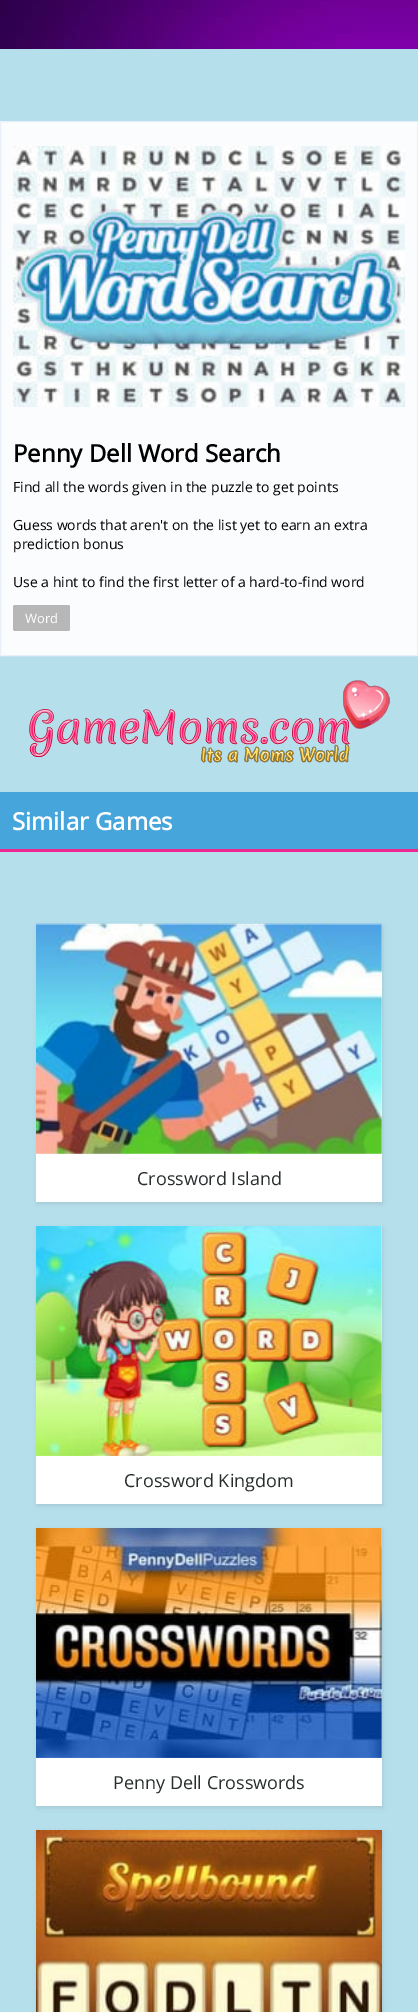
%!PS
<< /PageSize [418 2012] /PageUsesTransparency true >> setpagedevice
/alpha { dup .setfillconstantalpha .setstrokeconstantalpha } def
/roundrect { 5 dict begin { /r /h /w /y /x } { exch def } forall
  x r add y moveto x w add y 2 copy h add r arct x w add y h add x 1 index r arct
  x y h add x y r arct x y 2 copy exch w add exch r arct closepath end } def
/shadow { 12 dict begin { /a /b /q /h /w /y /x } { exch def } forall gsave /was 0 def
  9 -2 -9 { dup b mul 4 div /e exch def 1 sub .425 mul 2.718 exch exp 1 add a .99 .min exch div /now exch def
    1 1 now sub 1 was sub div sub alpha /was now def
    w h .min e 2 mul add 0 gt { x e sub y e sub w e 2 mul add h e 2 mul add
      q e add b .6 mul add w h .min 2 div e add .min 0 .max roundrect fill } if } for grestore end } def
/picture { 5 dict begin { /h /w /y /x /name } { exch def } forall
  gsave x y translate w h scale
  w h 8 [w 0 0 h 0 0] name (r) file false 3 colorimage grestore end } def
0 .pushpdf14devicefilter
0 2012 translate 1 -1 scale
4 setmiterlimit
0.714 0.875 0.925 setrgbcolor
0 0 418 2012 rectfill
(img1.rgb) 0 0 418 49 picture
0.984 0.988 0.992 setrgbcolor
newpath 0.5 121.5 moveto 417.5 121.5 lineto 417.5 655.5 lineto 0.5 655.5 lineto closepath gsave fill grestore
0.914 0.941 0.969 setrgbcolor
stroke
(img2.rgb) 13 146 392 261 picture
/OpenSans-Bold [24 0 0 -24 0 0] selectfont
0 setgray
13 462 moveto (Penny Dell Word Search) show
/OpenSans-Regular [14 0 0 -14 0 0] selectfont
13 492 moveto (Find all the words given in the puzzle to get points) show
13 530 moveto (Guess words that aren't on the list yet to earn an extra) show
13 549 moveto (prediction bonus) show
13 587 moveto (Use a hint to find the first letter of a hard-to-find word) show
0.718 setgray
13 605 57 26 2 roundrect fill
/OpenSans-Regular [13 0 0 -13 0 0] selectfont
1 setgray
25 623 moveto (Word) show
(img3.rgb) 29 680 361 83 picture
0.275 0.647 0.859 setrgbcolor
0 792 418 57 rectfill
0.929 0.157 0.573 setrgbcolor
0 849 418 3 rectfill
/OpenSans-Bold [24 0 0 -24 0 0] selectfont
1 setgray
12 830 moveto (Similar Games) show
0 setgray
37 926 346 278 0 2 0.1 shadow
1 setgray
36 924 346 278 rectfill
(img4.rgb) 36 923 346 231 picture
/OpenSans-Regular [18 0 0 -18 0 0] selectfont
0.153 0.176 0.176 setrgbcolor
137 1185 moveto (Crossword Island) show
0 setgray
37 1228 346 278 0 2 0.1 shadow
1 setgray
36 1226 346 278 rectfill
(img5.rgb) 36 1226 346 230 picture
0.153 0.176 0.176 setrgbcolor
124 1487 moveto (Crossword Kingdom) show
0 setgray
37 1530 346 278 0 2 0.1 shadow
1 setgray
36 1528 346 278 rectfill
(img6.rgb) 36 1528 346 230 picture
0.153 0.176 0.176 setrgbcolor
113 1789 moveto (Penny Dell Crosswords) show
0 setgray
37 1832 346 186 0 2 0.1 shadow
(img7.rgb) 36 1830 346 182 picture
.poppdf14devicefilter showpage
